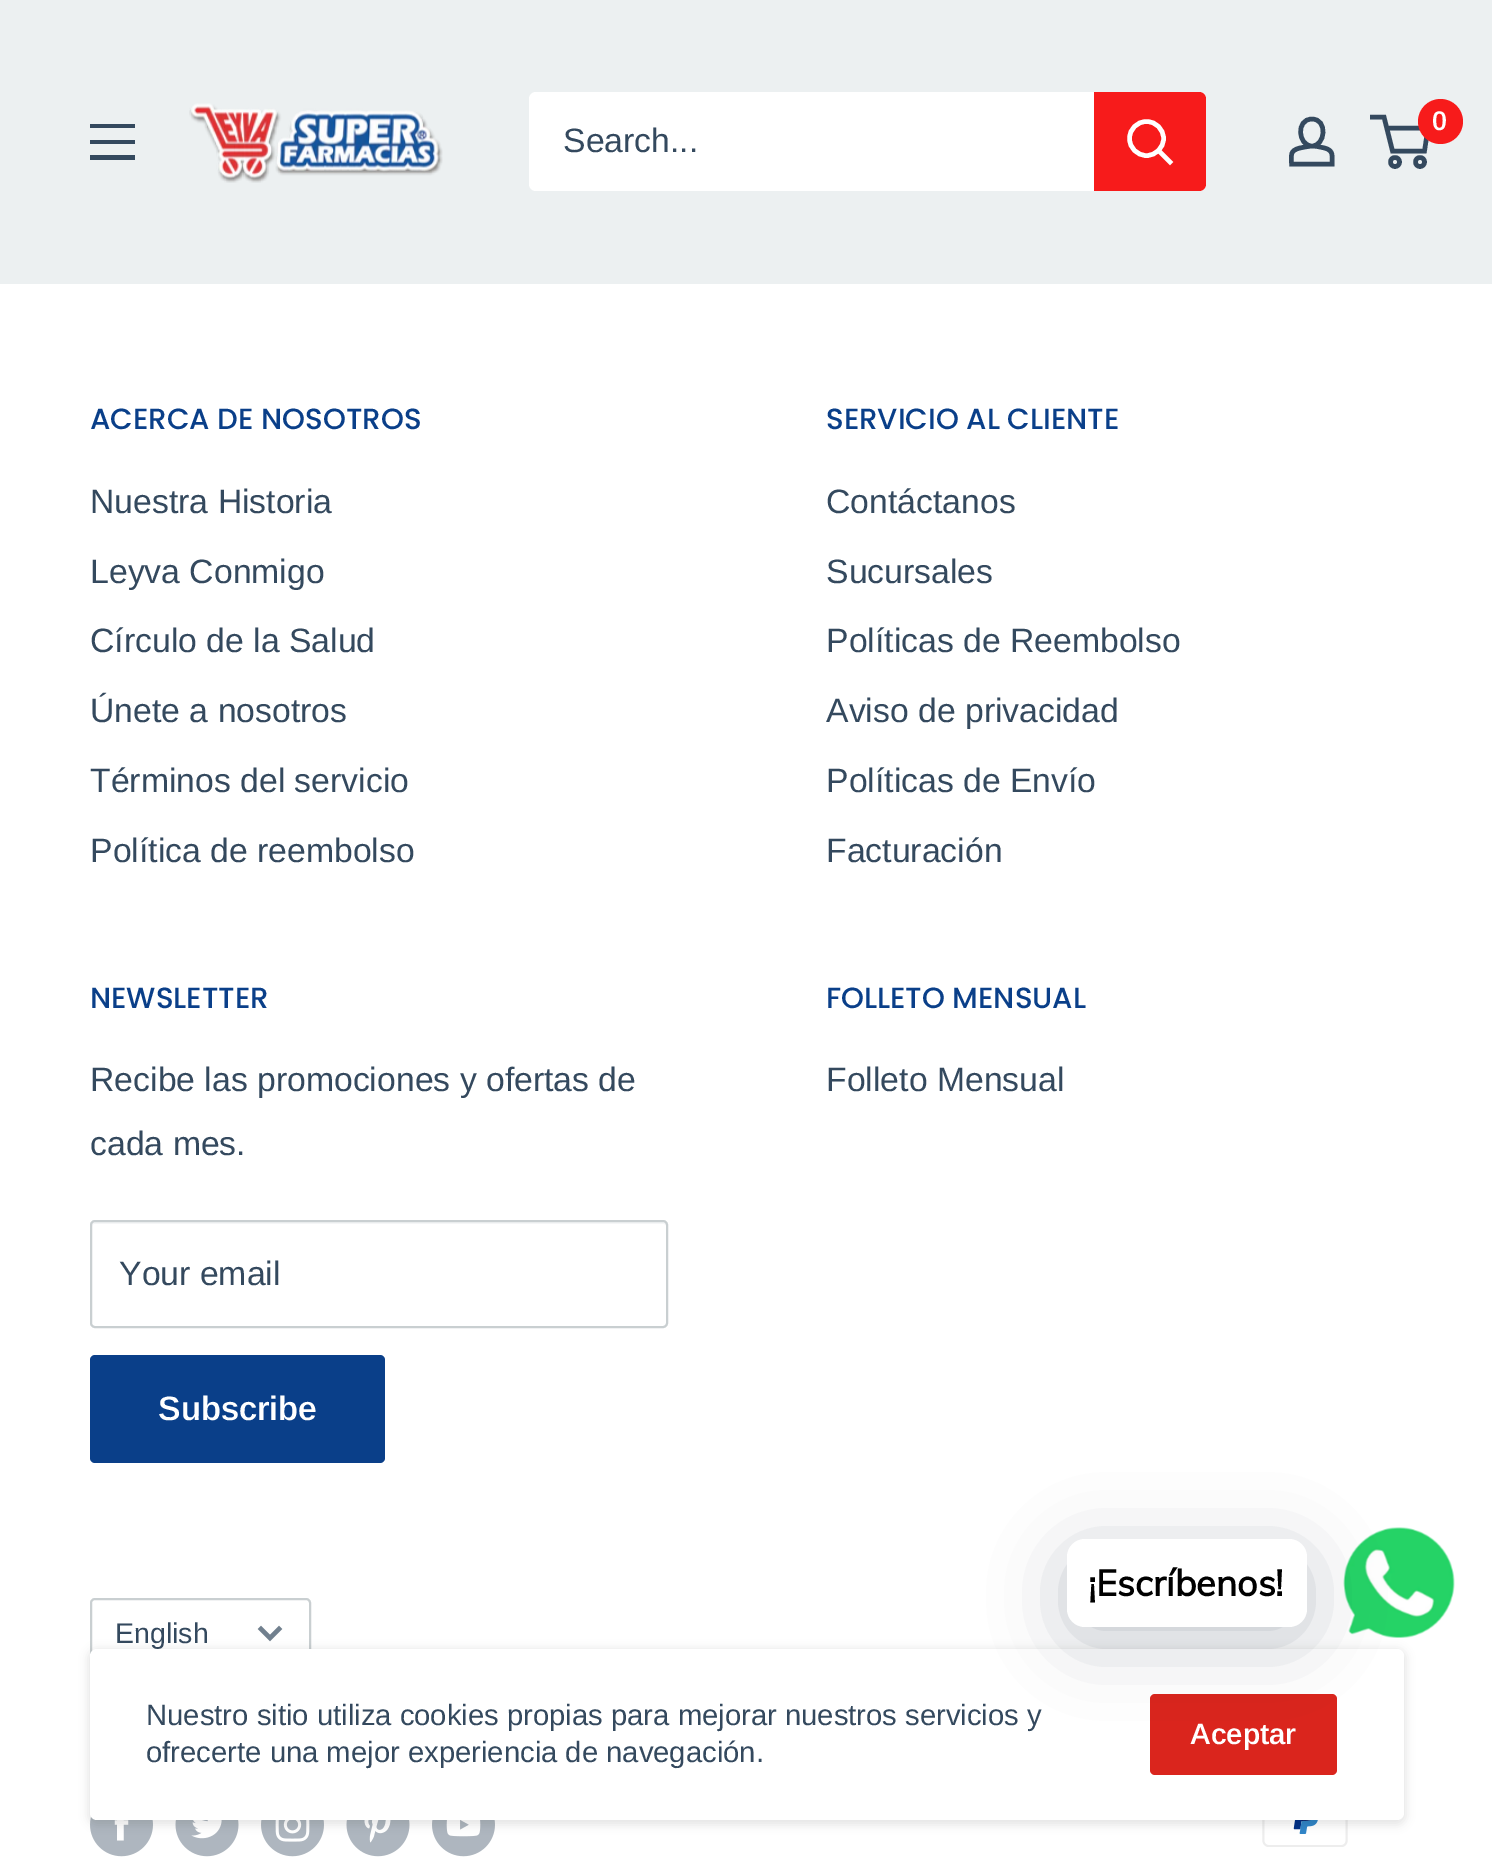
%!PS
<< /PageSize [1492 1875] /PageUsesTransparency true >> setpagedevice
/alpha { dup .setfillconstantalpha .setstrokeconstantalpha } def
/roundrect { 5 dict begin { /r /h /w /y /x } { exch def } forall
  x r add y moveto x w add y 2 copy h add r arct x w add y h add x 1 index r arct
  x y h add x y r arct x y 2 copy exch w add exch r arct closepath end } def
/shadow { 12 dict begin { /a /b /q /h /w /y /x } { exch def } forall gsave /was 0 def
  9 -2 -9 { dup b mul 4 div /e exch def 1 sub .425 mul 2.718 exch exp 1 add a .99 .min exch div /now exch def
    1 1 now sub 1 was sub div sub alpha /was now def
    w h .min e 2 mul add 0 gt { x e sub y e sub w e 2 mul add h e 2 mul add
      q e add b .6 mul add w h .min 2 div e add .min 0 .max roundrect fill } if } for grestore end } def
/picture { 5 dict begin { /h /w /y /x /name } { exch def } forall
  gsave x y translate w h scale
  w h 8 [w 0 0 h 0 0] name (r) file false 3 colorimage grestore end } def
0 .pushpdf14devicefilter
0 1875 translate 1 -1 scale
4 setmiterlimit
1 setgray
0 0 1492 1875 rectfill
0.925 0.941 0.945 setrgbcolor
0 0 1492 284 rectfill
(img1.rgb) 189 103 254 80 picture
0.204 0.286 0.369 setrgbcolor
4.5 setlinewidth
newpath 1312 146 moveto 1316 146 1320 147 1324.5 148 curveto 1334 150.5 1332 156 1332 164 curveto 1291.5 164 lineto 1291.5 155 1289.5 150.5 1300 148 curveto 1304 147 1308 146.5 1312 146 curveto closepath 1312 146 moveto 1298 146 1295.5 119 1312 119 curveto 1328 119 1325.5 146 1312 146 curveto closepath stroke
newpath 1395 162 4.5 0 360 arc closepath stroke
newpath 1420 162 4.5 0 360 arc closepath stroke
newpath 1386.5 128 moveto 1428 128 lineto 1424.5 151 lineto 1392.5 151 lineto 1384 117 lineto 1370 117 lineto stroke
0.969 0.106 0.106 setrgbcolor
newpath 1440.5 121.5 22.5 0 360 arc closepath fill
/Arimo-SemiBold [27 0 0 -27 0 0] selectfont
1 setgray
1432 130 moveto (0) show
0.204 0.286 0.369 setrgbcolor
newpath 90 155 moveto 135 155 lineto 135 160 lineto 90 160 lineto closepath 90 124 moveto 135 124 lineto 135 128 lineto 90 128 lineto closepath 90 140 moveto 135 140 lineto 135 144 lineto 90 144 lineto closepath eofill
1 setgray
529 92 677 99 7 roundrect fill
/Arimo-Regular [33.75 0 0 -33.75 0 0] selectfont
0.204 0.286 0.369 setrgbcolor
563 152 moveto (Search...) show
0.969 0.106 0.106 setrgbcolor
newpath 1094 92 moveto 1199 92 lineto 1203 92 1206 95 1206 99 curveto 1206 184 lineto 1206 188 1203 191 1199 191 curveto 1094 191 lineto closepath fill
1 setgray
2 setlinecap
newpath 1170 162 moveto 1159 151 lineto stroke
0 setlinecap
newpath 1146.5 138.5 17 0 360 arc closepath stroke
/Poppins-Medium [29.25 0 0 -29.25 0 0] selectfont
0.039 0.247 0.537 setrgbcolor
90 429 moveto (ACERCA DE NOSOTROS) show
/Arimo-Regular [33.75 0 0 -33.75 0 0] selectfont
0.204 0.286 0.369 setrgbcolor
90 513 moveto (Nuestra Historia) show
90 583 moveto (Leyva Conmigo) show
90 652 moveto (Círculo de la Salud) show
90 722 moveto (Únete a nosotros) show
90 792 moveto (Términos del servicio) show
90 862 moveto (Política de reembolso) show
/Poppins-Medium [29.25 0 0 -29.25 0 0] selectfont
0.039 0.247 0.537 setrgbcolor
826 429 moveto (SERVICIO AL CLIENTE) show
/Arimo-Regular [33.75 0 0 -33.75 0 0] selectfont
0.204 0.286 0.369 setrgbcolor
826 513 moveto (Contáctanos) show
826 583 moveto (Sucursales) show
826 652 moveto (Políticas de Reembolso) show
826 722 moveto (Aviso de privacidad) show
826 792 moveto (Políticas de Envío) show
826 862 moveto (Facturación) show
/Poppins-Medium [29.25 0 0 -29.25 0 0] selectfont
0.039 0.247 0.537 setrgbcolor
90 1008 moveto (NEWSLETTER) show
/Arimo-Regular [33.75 0 0 -33.75 0 0] selectfont
0.204 0.286 0.369 setrgbcolor
90 1091 moveto (Recibe las promociones y ofertas de) show
90 1155 moveto (cada mes.) show
0.961 0.965 0.969 setrgbcolor
newpath 94 1224 moveto 664 1224 lineto 665 1224 666 1225 666 1226 curveto 666 1224 666 1222 664 1222 curveto 94 1222 lineto 92 1223 lineto 92 1226 lineto 92 1225 93 1224 94 1224 curveto closepath fill
0.788 0.812 0.82 setrgbcolor
2 setlinewidth
91 1221 576 106 4 roundrect stroke
0.204 0.286 0.369 setrgbcolor
119 1285 moveto (Your email) show
0.039 0.247 0.537 setrgbcolor
90 1355 295 108 5 roundrect fill
/Arimo-SemiBold [33.75 0 0 -33.75 0 0] selectfont
1 setgray
158 1420 moveto (Subscribe) show
/Poppins-Medium [29.25 0 0 -29.25 0 0] selectfont
0.039 0.247 0.537 setrgbcolor
826 1008 moveto (FOLLETO MENSUAL) show
/Arimo-Regular [33.75 0 0 -33.75 0 0] selectfont
0.204 0.286 0.369 setrgbcolor
826 1091 moveto (Folleto Mensual) show
0.788 0.812 0.82 setrgbcolor
91 1599 219 70 4 roundrect stroke
/Arimo-Regular [28.5 0 0 -28.5 0 0] selectfont
0.204 0.286 0.369 setrgbcolor
115 1643 moveto (English) show
0.443 0.502 0.557 setrgbcolor
4.5 setlinewidth
2 setlinecap
newpath 279 1629 moveto 270 1638 lineto 261 1629 lineto stroke
(img2.rgb) 90 1816 63 41 picture
(img3.rgb) 175 1820 64 37 picture
(img4.rgb) 261 1820 63 37 picture
(img5.rgb) 346 1820 64 37 picture
(img6.rgb) 432 1820 63 37 picture
(img7.rgb) 1262 1820 86 27 picture
0 setgray
88 1649 1318 176 9 4.5 0.1 shadow
1 setgray
90 1649 1314 171 7 roundrect fill
/Arimo-Regular [29.25 0 0 -29.25 0 0] selectfont
0.204 0.286 0.369 setrgbcolor
146 1725 moveto (Nuestro sitio utiliza cookies propias para mejorar nuestros servicios y) show
146 1762 moveto (ofrecerte una mejor experiencia de navegación.) show
0.855 0.145 0.114 setrgbcolor
1150 1694 187 81 5 roundrect fill
/Arimo-SemiBold [29.25 0 0 -29.25 0 0] selectfont
1 setgray
1190 1744 moveto (Aceptar) show
(img8.rgb) 1343 1527 112 111 picture
0 0.071 0.18 setrgbcolor
1067 1553 240 87 18 36 0.24 shadow
1 setgray
1067 1539 240 88 18 roundrect fill
/Muli-Bold [36 0 0 -36 0 0] selectfont
0 setgray
1088 1596 moveto (¡Escríbenos!) show
.poppdf14devicefilter showpage
